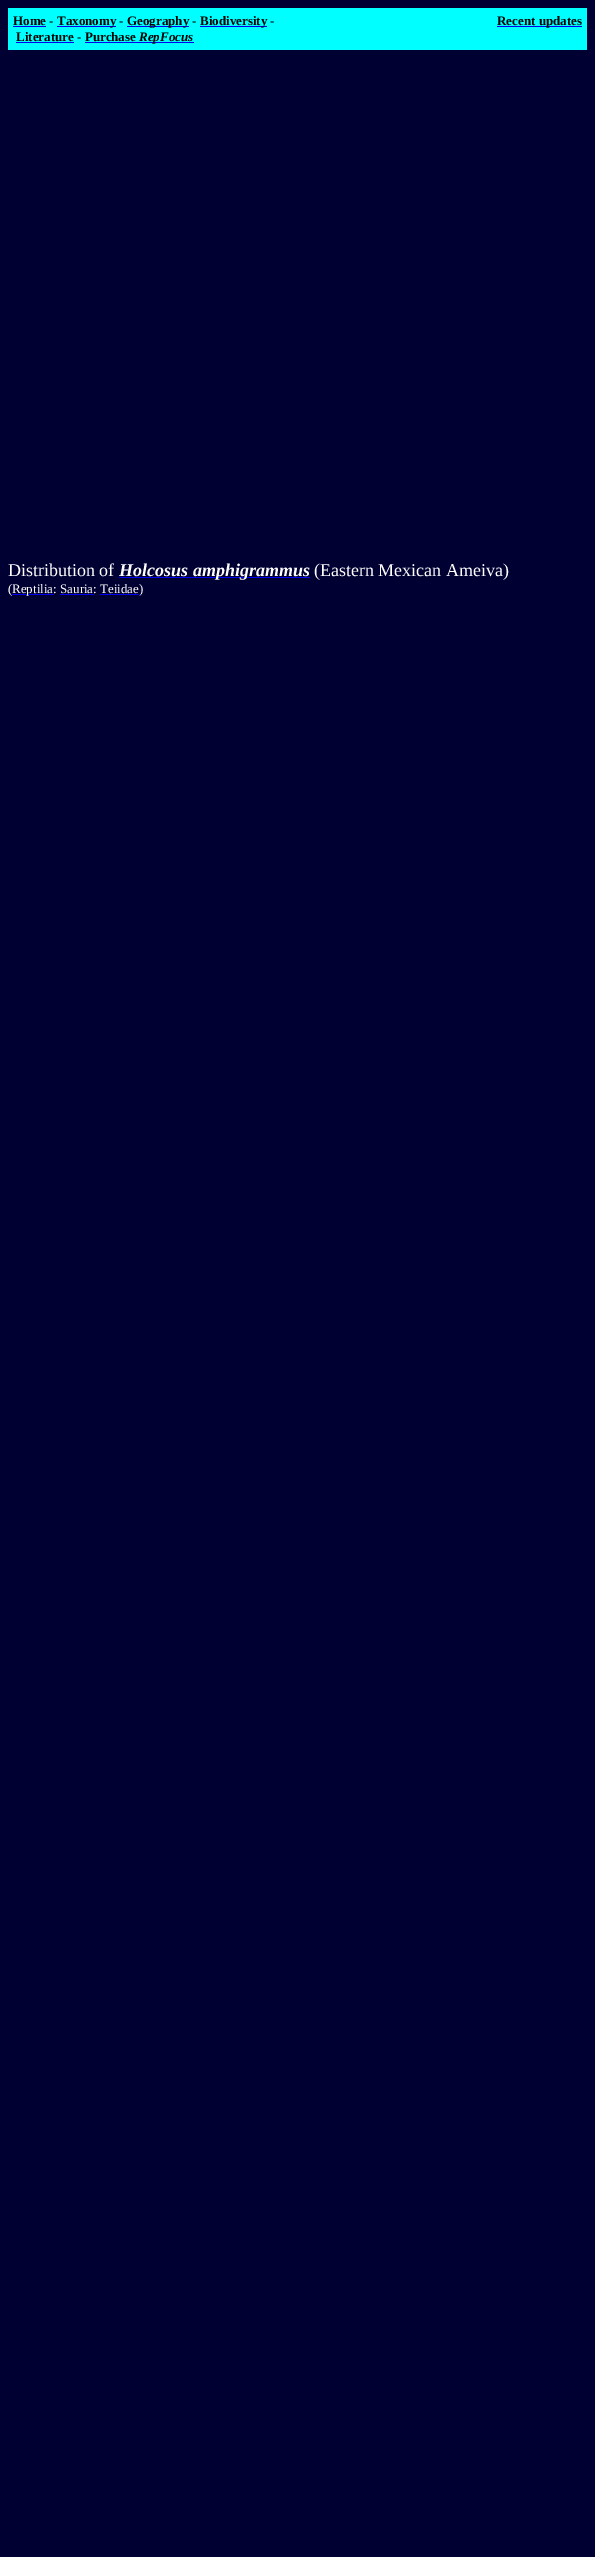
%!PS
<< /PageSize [595 2557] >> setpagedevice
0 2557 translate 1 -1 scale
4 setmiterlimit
0 0 0.2 setrgbcolor
0 0 595 2557 rectfill
0 1 1 setrgbcolor
8 8 579 42 rectfill
/LiberationSerif-Bold [13 0 0 -13 0 0] selectfont
0 setgray
13 25 moveto (Home -) show
0 0 0.933 setrgbcolor
13 26 33 1 rectfill
57 26 59 1 rectfill
0 setgray
57 25 moveto (Taxonomy -) show
0 0 0.933 setrgbcolor
127 26 62 1 rectfill
0 setgray
127 25 moveto (Geography -) show
0 0 0.933 setrgbcolor
200 26 67 1 rectfill
0 setgray
200 25 moveto (Biodiversity -) show
16 41 moveto (Literature - Purchase) show
0 0 0.933 setrgbcolor
16 42 58 1 rectfill
85 42 109 1 rectfill
/LiberationSerif-BoldItalic [13 0 0 -13 0 0] selectfont
0 setgray
139 41 moveto (RepFocus) show
0 0 0.933 setrgbcolor
497 26 85 1 rectfill
/LiberationSerif-Bold [13 0 0 -13 0 0] selectfont
0 setgray
497 25 moveto (Recent updates) show
/LiberationSerif-Regular [18 0 0 -18 0 0] selectfont
1 setgray
8 576 moveto (Distribution of) show
0 0 0.933 setrgbcolor
119 577 191 1 rectfill
/LiberationSerif-BoldItalic [18 0 0 -18 0 0] selectfont
1 setgray
119 576 moveto (Holcosus amphigrammus) show
/LiberationSerif-Regular [18 0 0 -18 0 0] selectfont
314 576 moveto (\(Eastern Mexican Ameiva\)) show
/LiberationSerif-Regular [13 0 0 -13 0 0] selectfont
8 593 moveto (\() show
0 0 0.933 setrgbcolor
12 594 42 1 rectfill
1 setgray
12 593 moveto (Reptilia: Sauria: Teiidae\)) show
0 0 0.933 setrgbcolor
60 594 34 1 rectfill
100 594 39 1 rectfill
showpage
